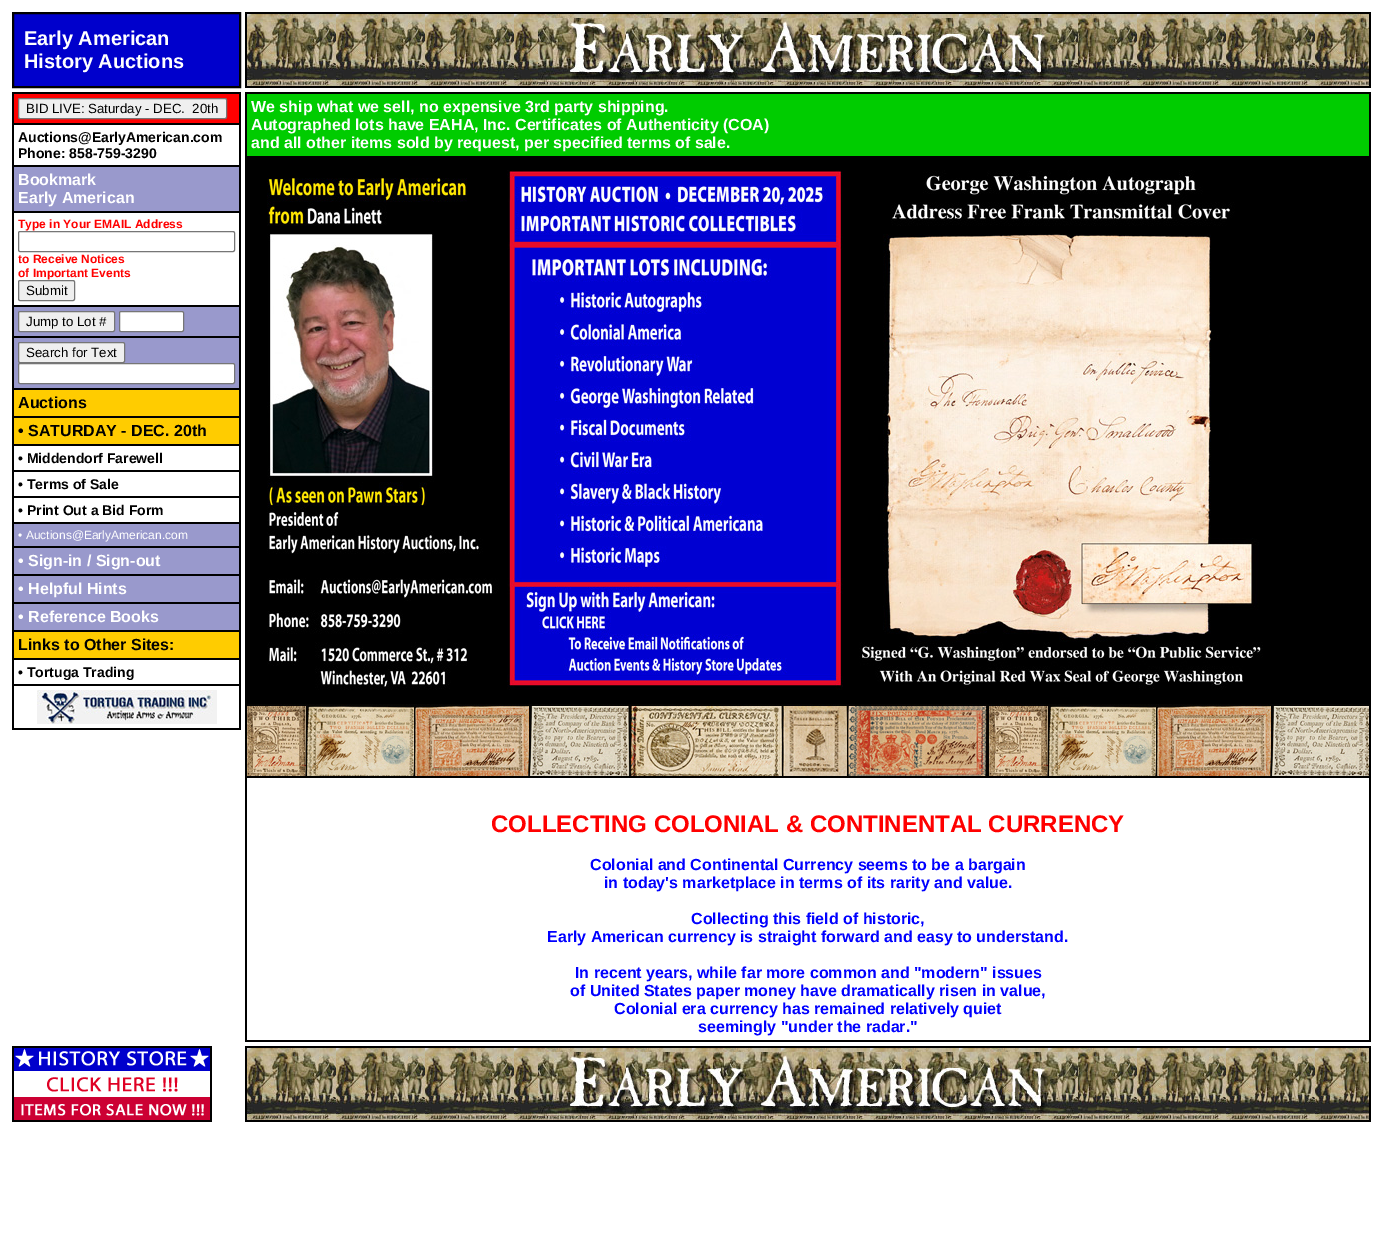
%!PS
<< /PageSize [1383 1246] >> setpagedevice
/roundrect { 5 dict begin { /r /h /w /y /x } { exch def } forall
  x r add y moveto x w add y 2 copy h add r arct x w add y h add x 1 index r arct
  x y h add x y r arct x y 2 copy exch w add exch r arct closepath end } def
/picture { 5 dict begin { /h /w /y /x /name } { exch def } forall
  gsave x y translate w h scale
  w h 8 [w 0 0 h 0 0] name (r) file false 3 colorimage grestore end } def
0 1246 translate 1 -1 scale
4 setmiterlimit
1 setgray
0 0 1383 1246 rectfill
0 0 0.8 setrgbcolor
newpath 13 13 moveto 240 13 lineto 240 87 lineto 13 87 lineto closepath gsave fill grestore
0 setgray
2 setlinewidth
stroke
/LiberationSans-Bold [20 0 0 -20 0 0] selectfont
1 setgray
24 45 moveto (Early American) show
24 68 moveto (History Auctions) show
0 setgray
245 12 1126 76 rectfill
(img1.rgb) 247 14 1122 72 picture
(img2.rgb) 538 18 540 64 picture
12 92 229 638 rectfill
1 0 0 setrgbcolor
14 94 225 29 rectfill
0.937 setgray
18.5 98.5 208 20 1.5 roundrect gsave fill grestore
0.463 setgray
1 setlinewidth
stroke
/LiberationSans-Regular [13.3 0 0 -13.3 0 0] selectfont
0 setgray
26 113 moveto (BID LIVE: Saturday - DEC.  20th) show
1 setgray
14 125 225 40 rectfill
/LiberationSans-Bold [14 0 0 -14 0 0] selectfont
0 setgray
18 142 moveto (Auctions@EarlyAmerican.com) show
18 158 moveto (Phone: 858-759-3290) show
0.6 0.6 0.8 setrgbcolor
14 167 225 44 rectfill
/LiberationSans-Bold [16 0 0 -16 0 0] selectfont
1 setgray
18 185 moveto (Bookmark) show
18 203 moveto (Early American) show
14 213 225 92 rectfill
/LiberationSans-Bold [12 0 0 -12 0 0] selectfont
1 0 0 setrgbcolor
18 228 moveto (Type in Your EMAIL Address) show
0.463 setgray
18.5 231.5 216 20 1.5 roundrect stroke
1 0 0 setrgbcolor
18 263 moveto (to Receive Notices) show
18 277 moveto (of Important Events) show
0.937 setgray
18.5 280.5 56 20 1.5 roundrect gsave fill grestore
0.463 setgray
stroke
/LiberationSans-Regular [13.3 0 0 -13.3 0 0] selectfont
0 setgray
26 295 moveto (Submit) show
0.6 0.6 0.8 setrgbcolor
14 307 225 29 rectfill
0.937 setgray
18.5 311.5 96 20 1.5 roundrect gsave fill grestore
0.463 setgray
stroke
0 setgray
26 326 moveto (Jump to Lot #) show
1 setgray
119.5 311.5 64 20 1.5 roundrect gsave fill grestore
0.463 setgray
stroke
0.6 0.6 0.8 setrgbcolor
14 338 225 50 rectfill
0.937 setgray
18.5 342.5 106 20 1.5 roundrect gsave fill grestore
0.463 setgray
stroke
0 setgray
26 357 moveto (Search for Text) show
1 setgray
18.5 363.5 216 20 1.5 roundrect gsave fill grestore
0.463 setgray
stroke
1 0.8 0 setrgbcolor
14 390 225 26 rectfill
/LiberationSans-Bold [16 0 0 -16 0 0] selectfont
0 setgray
18 408 moveto (Auctions) show
1 0.8 0 setrgbcolor
14 418 225 26 rectfill
0 setgray
18 436 moveto (• SATURDAY - DEC. 20th) show
1 setgray
14 446 225 24 rectfill
/LiberationSans-Bold [14 0 0 -14 0 0] selectfont
0 setgray
18 463 moveto (• Middendorf Farewell) show
1 setgray
14 472 225 24 rectfill
0 setgray
18 489 moveto (• Terms of Sale) show
1 setgray
14 498 225 24 rectfill
0 setgray
18 515 moveto (• Print Out a Bid Form) show
0.6 0.6 0.8 setrgbcolor
14 524 225 22 rectfill
/LiberationSans-Regular [12 0 0 -12 0 0] selectfont
1 setgray
18 539 moveto (• Auctions@EarlyAmerican.com) show
0.6 0.6 0.8 setrgbcolor
14 548 225 26 rectfill
/LiberationSans-Bold [16 0 0 -16 0 0] selectfont
1 setgray
18 566 moveto (• Sign-in / Sign-out) show
0.6 0.6 0.8 setrgbcolor
14 576 225 26 rectfill
1 setgray
18 594 moveto (• Helpful Hints) show
0.6 0.6 0.8 setrgbcolor
14 604 225 26 rectfill
1 setgray
18 622 moveto (• Reference Books) show
1 0.8 0 setrgbcolor
14 632 225 26 rectfill
0 setgray
18 650 moveto (Links to Other Sites:) show
1 setgray
14 660 225 24 rectfill
/LiberationSans-Bold [14 0 0 -14 0 0] selectfont
0 setgray
18 677 moveto (• Tortuga Trading) show
1 setgray
14 686 225 42 rectfill
(img3.rgb) 37 690 180 34 picture
0 setgray
245 92 1126 950 rectfill
0 0.8 0 setrgbcolor
247 94 1122 62 rectfill
/LiberationSans-Bold [16 0 0 -16 0 0] selectfont
1 setgray
251 112 moveto (We ship what we sell, no expensive 3rd party shipping.) show
251 130 moveto (Autographed lots have EAHA, Inc. Certificates of Authenticity \(COA\)) show
251 148 moveto (and all other items sold by request, per specified terms of sale.) show
(img4.rgb) 267 170 996 520 picture
(img5.rgb) 247 704 1122 72 picture
247 778 1122 262 rectfill
/LiberationSans-Bold [24 0 0 -24 0 0] selectfont
1 0 0 setrgbcolor
491 832 moveto (COLLECTING COLONIAL & CONTINENTAL CURRENCY) show
/LiberationSans-Bold [16 0 0 -16 0 0] selectfont
0 0 1 setrgbcolor
590 870 moveto (Colonial and Continental Currency seems to be a bargain) show
604 888 moveto (in today's marketplace in terms of its rarity and value.) show
691 924 moveto (Collecting this field of historic,) show
547 942 moveto (Early American currency is straight forward and easy to understand.) show
575 978 moveto (In recent years, while far more common and "modern" issues) show
570 996 moveto (of United States paper money have dramatically risen in value,) show
614 1014 moveto (Colonial era currency has remained relatively quiet) show
698 1032 moveto (seemingly "under the radar.") show
(img6.rgb) 12 1046 200 76 picture
0 setgray
245 1046 1126 76 rectfill
(img1.rgb) 247 1048 1122 72 picture
(img2.rgb) 538 1052 540 64 picture
showpage
